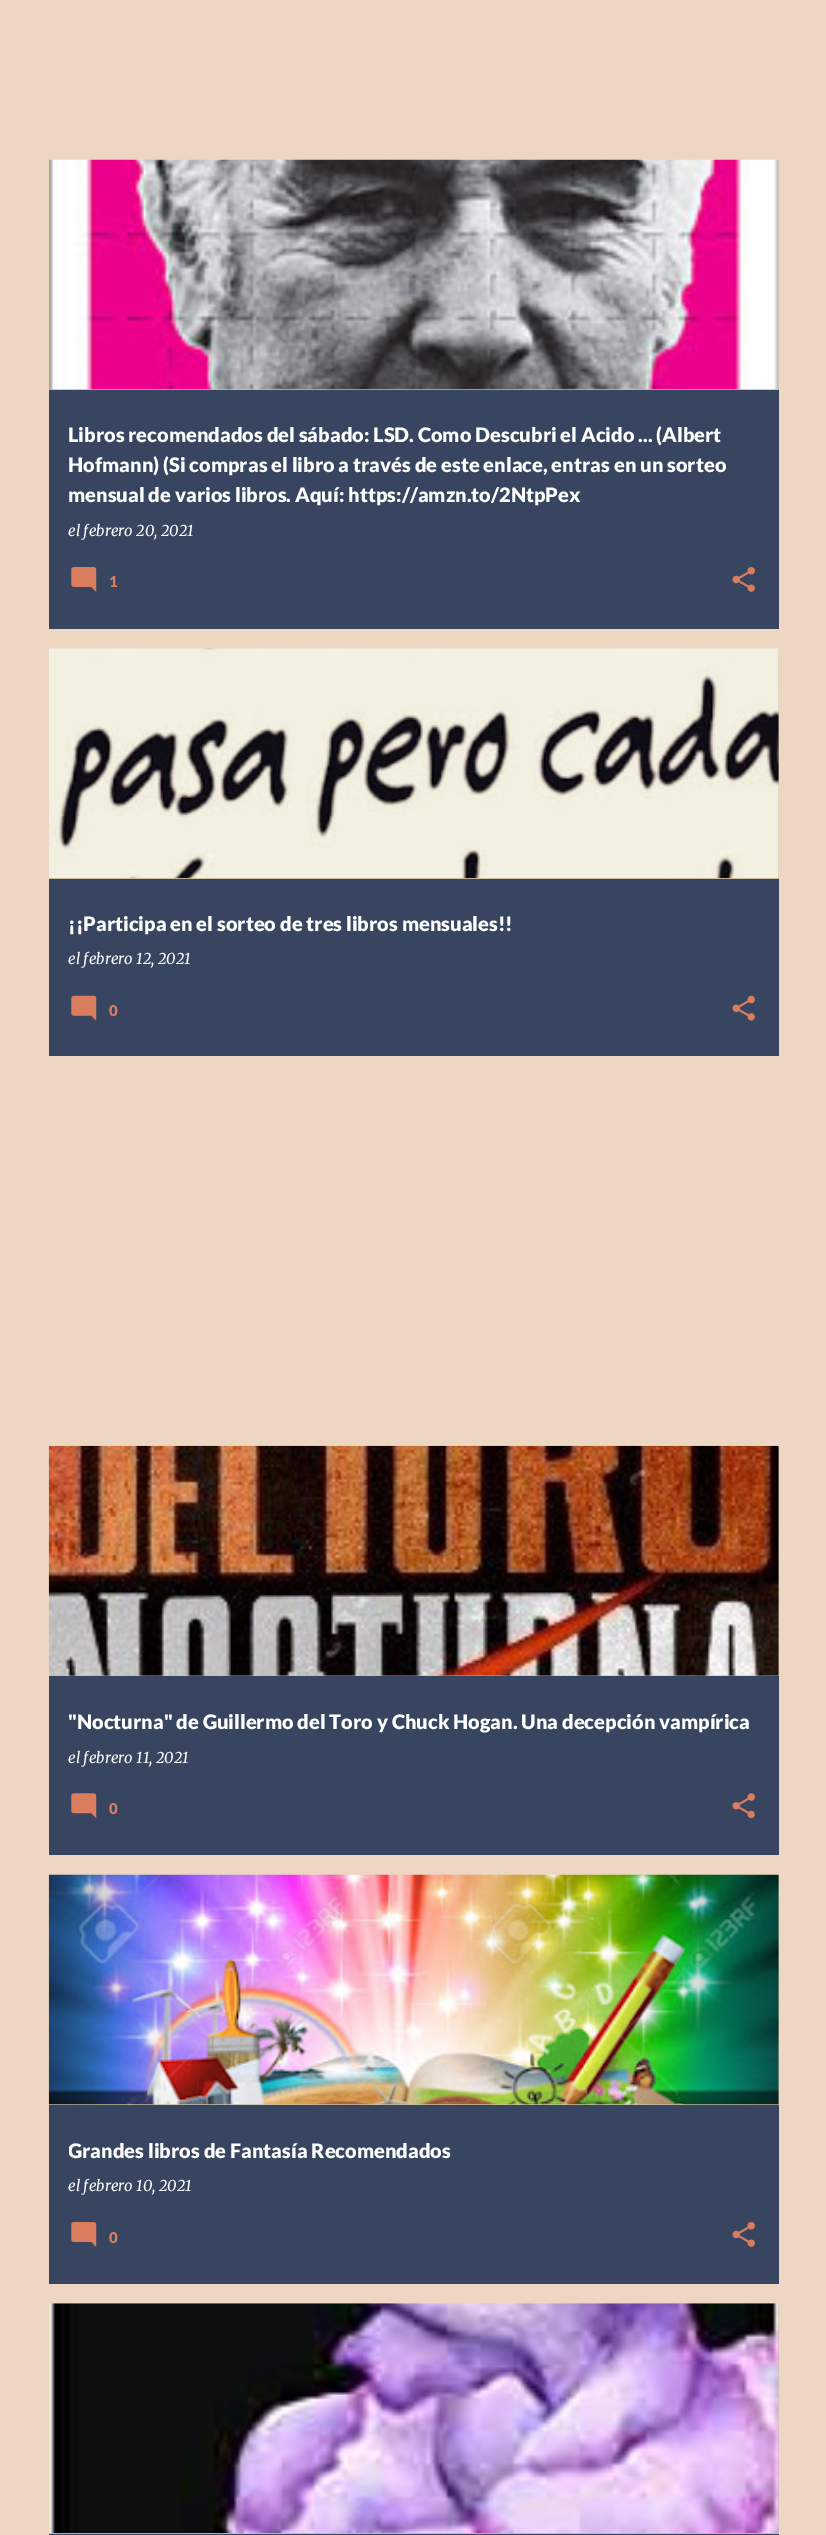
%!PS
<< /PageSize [826 2535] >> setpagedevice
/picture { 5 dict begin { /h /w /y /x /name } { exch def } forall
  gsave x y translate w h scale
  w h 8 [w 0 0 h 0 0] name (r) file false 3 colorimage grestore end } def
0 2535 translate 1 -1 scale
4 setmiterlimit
0.933 0.843 0.761 setrgbcolor
0 0 826 2535 rectfill
0.216 0.271 0.38 setrgbcolor
49 390 730 239 rectfill
0.784 0.729 0.62 setrgbcolor
49 160 730 230 rectfill
(img1.rgb) 49 159 730 231 picture
/Lato-Black [20 0 0 -20 0 0] selectfont
1 setgray
68 442 moveto (Libros recomendados del sábado: LSD. Como Descubri el Acido ... \(Albert) show
68 472 moveto (Hofmann\) \(Si compras el libro a través de este enlace, entras en un sorteo) show
68 502 moveto (mensual de varios libros. Aquí: https://amzn.to/2NtpPex) show
/Merriweather-Italic [15 0 0 -15 0 0] selectfont
68 536 moveto (el febrero 20, 2021) show
(img2.rgb) 71 567 26 25 picture
/Lato-Black [15 0 0 -15 0 0] selectfont
0.855 0.49 0.369 setrgbcolor
109 587 moveto (1) show
(img3.rgb) 732 567 23 25 picture
0.216 0.271 0.38 setrgbcolor
49 879 730 177 rectfill
0.784 0.729 0.62 setrgbcolor
49 649 730 230 rectfill
(img4.rgb) 49 648 730 231 picture
/Lato-Black [20 0 0 -20 0 0] selectfont
1 setgray
68 931 moveto (¡¡Participa en el sorteo de tres libros mensuales!!) show
/Merriweather-Italic [15 0 0 -15 0 0] selectfont
68 964 moveto (el febrero 12, 2021) show
(img5.rgb) 71 995 26 26 picture
/Lato-Black [15 0 0 -15 0 0] selectfont
0.855 0.49 0.369 setrgbcolor
109 1016 moveto (0) show
(img6.rgb) 732 995 23 26 picture
0.216 0.271 0.38 setrgbcolor
49 1676 730 179 rectfill
0.784 0.729 0.62 setrgbcolor
49 1446 730 230 rectfill
(img7.rgb) 48 1445 731 231 picture
/Lato-Black [20 0 0 -20 0 0] selectfont
1 setgray
68 1729 moveto ("Nocturna" de Guillermo del Toro y Chuck Hogan. Una decepción vampírica) show
/Merriweather-Italic [15 0 0 -15 0 0] selectfont
68 1763 moveto (el febrero 11, 2021) show
(img8.rgb) 71 1793 26 26 picture
/Lato-Black [15 0 0 -15 0 0] selectfont
0.855 0.49 0.369 setrgbcolor
109 1814 moveto (0) show
(img9.rgb) 732 1793 23 26 picture
0.216 0.271 0.38 setrgbcolor
49 2105 730 179 rectfill
0.784 0.729 0.62 setrgbcolor
49 1875 730 230 rectfill
(img10.rgb) 48 1874 731 231 picture
gsave
69 2135 690 30 rectclip
/Lato-Black [20 0 0 -20 0 0] selectfont
1 setgray
68 2158 moveto (Grandes libros de Fantasía Recomendados) show
grestore
/Merriweather-Italic [15 0 0 -15 0 0] selectfont
1 setgray
68 2191 moveto (el febrero 10, 2021) show
(img2.rgb) 71 2222 26 25 picture
/Lato-Black [15 0 0 -15 0 0] selectfont
0.855 0.49 0.369 setrgbcolor
109 2243 moveto (0) show
(img3.rgb) 732 2222 23 25 picture
0.216 0.271 0.38 setrgbcolor
49 2534 730 1 rectfill
0.784 0.729 0.62 setrgbcolor
49 2304 730 230 rectfill
(img11.rgb) 49 2303 730 231 picture
showpage
